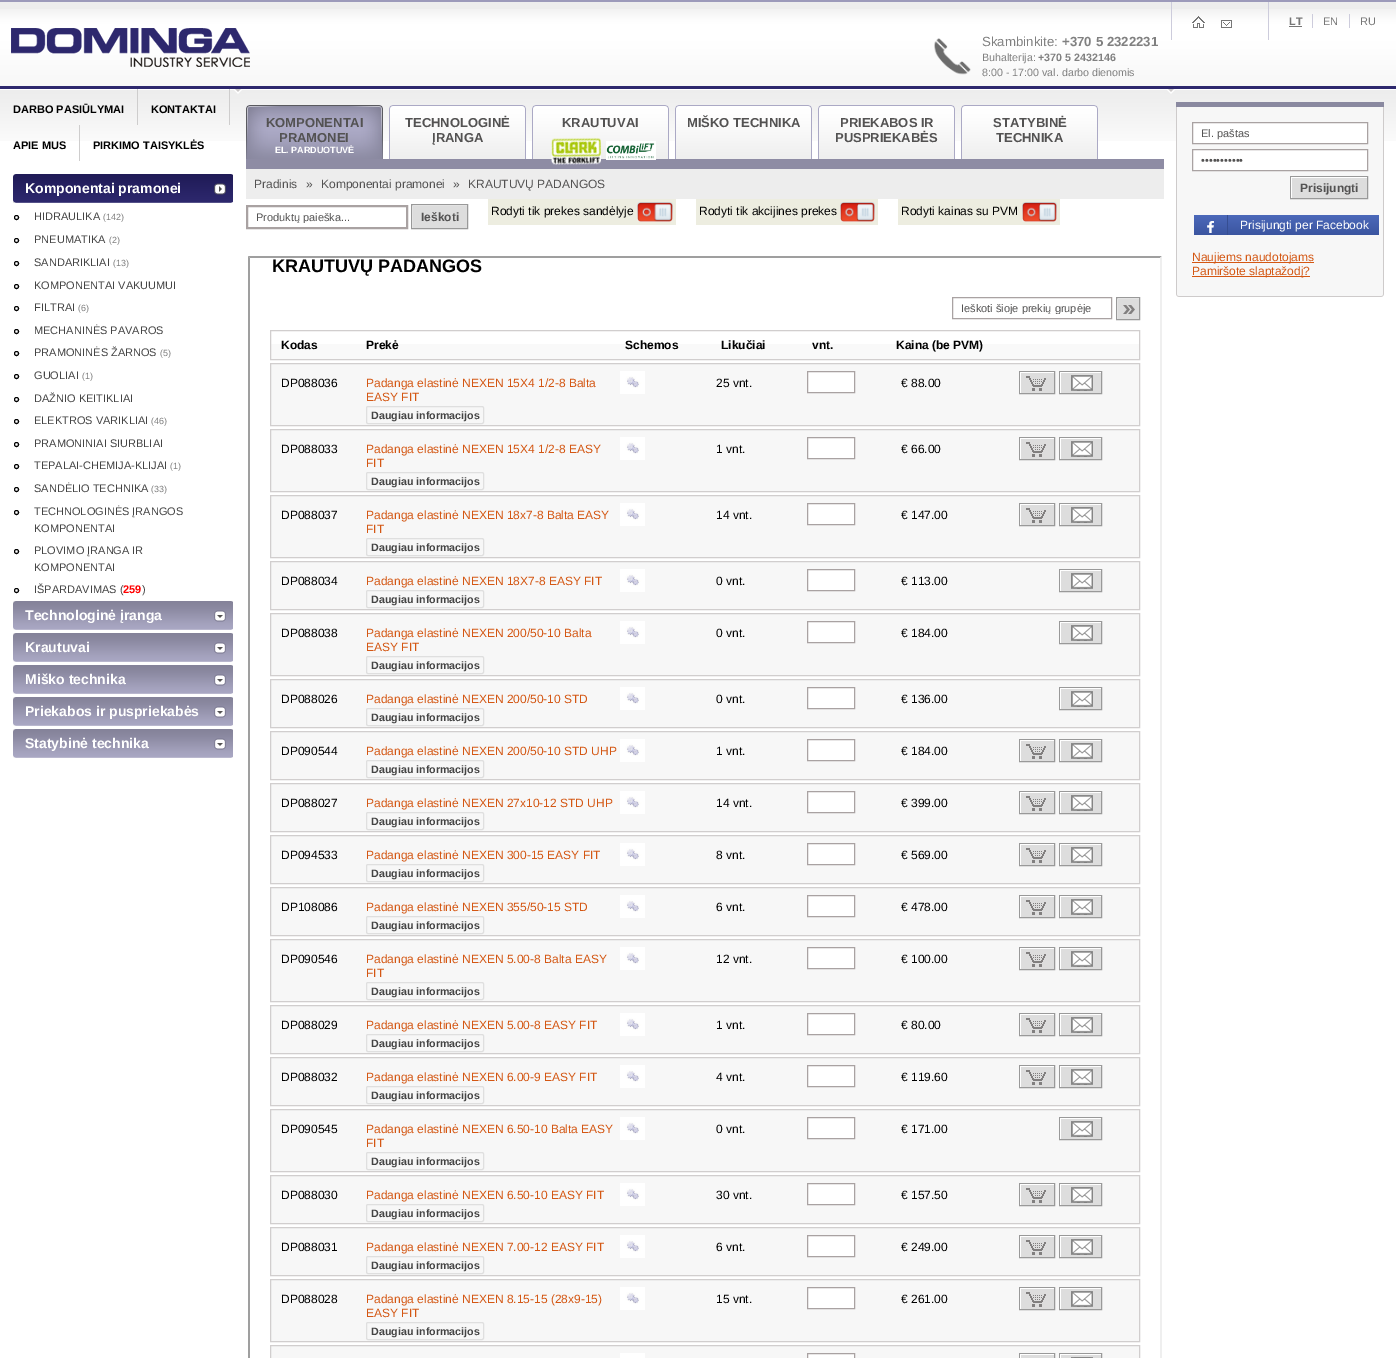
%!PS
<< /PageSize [1396 1358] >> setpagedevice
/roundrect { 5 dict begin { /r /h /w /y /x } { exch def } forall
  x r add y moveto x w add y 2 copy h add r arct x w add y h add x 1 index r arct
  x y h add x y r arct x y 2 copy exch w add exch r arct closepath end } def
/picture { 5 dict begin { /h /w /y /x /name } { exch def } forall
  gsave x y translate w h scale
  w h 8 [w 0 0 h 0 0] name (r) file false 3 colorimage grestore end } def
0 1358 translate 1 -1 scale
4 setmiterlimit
1 setgray
0 0 1396 1358 rectfill
0.929 setgray
0 2 1396 7 rectfill
(img1.rgb) 0 9 1396 77 picture
0.612 0.604 0.729 setrgbcolor
0 0 1396 2 rectfill
0.176 0.157 0.427 setrgbcolor
0 86 1396 3 rectfill
(img2.rgb) 11 28 239 39 picture
0.804 0.8 0.863 setrgbcolor
1171 2 1 38 rectfill
(img3.rgb) 1192 16 13 12 picture
(img4.rgb) 1221 20 11 8 picture
1268 2 1 38 rectfill
1312 14 1 14 rectfill
/LiberationSans-Bold [11 0 0 -11 0 0] selectfont
0.463 setgray
1289 25 moveto (LT) show
1289 26 13 1 rectfill
0.804 0.8 0.863 setrgbcolor
1349 14 1 14 rectfill
/LiberationSans-Regular [11 0 0 -11 0 0] selectfont
0.463 setgray
1323 25 moveto (EN) show
1360 25 moveto (RU) show
(img5.rgb) 934 38 37 37 picture
/LiberationSans-Regular [13.25 0 0 -13.25 0 0] selectfont
0.502 setgray
982 46 moveto (Skambinkite:) show
/LiberationSans-Bold [13.25 0 0 -13.25 0 0] selectfont
1062 46 moveto (+370 5 2322231) show
/LiberationSans-Regular [10.7 0 0 -10.7 0 0] selectfont
982 61 moveto (Buhalterija:) show
/LiberationSans-Bold [10.7 0 0 -10.7 0 0] selectfont
1038 61 moveto (+370 5 2432146) show
/LiberationSans-Regular [10.7 0 0 -10.7 0 0] selectfont
982 76 moveto (8:00 - 17:00 val. darbo dienomis) show
(img6.rgb) 0 90 1396 51 picture
(img7.rgb) 0 89 246 5 picture
0.808 0.804 0.804 setrgbcolor
137 89 1 36 rectfill
/LiberationSans-Bold [11 0 0 -11 0 0] selectfont
0 setgray
13 113 moveto (DARBO PASIŪLYMAI) show
0.808 0.804 0.804 setrgbcolor
229 89 1 36 rectfill
0 setgray
151 113 moveto (KONTAKTAI) show
0.808 0.804 0.804 setrgbcolor
79 125 1 36 rectfill
0 setgray
13 149 moveto (APIE MUS) show
93 149 moveto (PIRKIMO TAISYKLĖS) show
(img8.rgb) 13 174 220 29 picture
/LiberationSans-Bold [14 0 0 -14 0 0] selectfont
1 setgray
25 193 moveto (Komponentai pramonei) show
0 setgray
newpath 16.5 217.5 2 0 360 arc closepath stroke
/LiberationSans-Regular [11 0 0 -11 0 0] selectfont
0.267 setgray
34 220 moveto (HIDRAULIKA) show
/LiberationSans-Regular [9 0 0 -9 0 0] selectfont
0.502 setgray
103 220 moveto (\(142\)) show
0 setgray
newpath 16.5 240.5 2 0 360 arc closepath stroke
/LiberationSans-Regular [11 0 0 -11 0 0] selectfont
0.267 setgray
34 243 moveto (PNEUMATIKA) show
/LiberationSans-Regular [9 0 0 -9 0 0] selectfont
0.502 setgray
109 243 moveto (\(2\)) show
0 setgray
newpath 16.5 263.5 2 0 360 arc closepath stroke
/LiberationSans-Regular [11 0 0 -11 0 0] selectfont
0.267 setgray
34 266 moveto (SANDARIKLIAI) show
/LiberationSans-Regular [9 0 0 -9 0 0] selectfont
0.502 setgray
113 266 moveto (\(13\)) show
0 setgray
newpath 16.5 286.5 2 0 360 arc closepath stroke
/LiberationSans-Regular [11 0 0 -11 0 0] selectfont
0.267 setgray
34 289 moveto (KOMPONENTAI VAKUUMUI) show
0 setgray
newpath 16.5 308.5 2 0 360 arc closepath stroke
0.267 setgray
34 311 moveto (FILTRAI) show
/LiberationSans-Regular [9 0 0 -9 0 0] selectfont
0.502 setgray
78 311 moveto (\(6\)) show
0 setgray
newpath 16.5 331.5 2 0 360 arc closepath stroke
/LiberationSans-Regular [11 0 0 -11 0 0] selectfont
0.267 setgray
34 334 moveto (MECHANINĖS PAVAROS) show
0 setgray
newpath 16.5 353.5 2 0 360 arc closepath stroke
0.267 setgray
34 356 moveto (PRAMONINĖS ŽARNOS) show
/LiberationSans-Regular [9 0 0 -9 0 0] selectfont
0.502 setgray
160 356 moveto (\(5\)) show
0 setgray
newpath 16.5 376.5 2 0 360 arc closepath stroke
/LiberationSans-Regular [11 0 0 -11 0 0] selectfont
0.267 setgray
34 379 moveto (GUOLIAI) show
/LiberationSans-Regular [9 0 0 -9 0 0] selectfont
0.502 setgray
82 379 moveto (\(1\)) show
0 setgray
newpath 16.5 399.5 2 0 360 arc closepath stroke
/LiberationSans-Regular [11 0 0 -11 0 0] selectfont
0.267 setgray
34 402 moveto (DAŽNIO KEITIKLIAI) show
0 setgray
newpath 16.5 421.5 2 0 360 arc closepath stroke
0.267 setgray
34 424 moveto (ELEKTROS VARIKLIAI) show
/LiberationSans-Regular [9 0 0 -9 0 0] selectfont
0.502 setgray
151 424 moveto (\(46\)) show
0 setgray
newpath 16.5 444.5 2 0 360 arc closepath stroke
/LiberationSans-Regular [11 0 0 -11 0 0] selectfont
0.267 setgray
34 447 moveto (PRAMONINIAI SIURBLIAI) show
0 setgray
newpath 16.5 466.5 2 0 360 arc closepath stroke
0.267 setgray
34 469 moveto (TEPALAI-CHEMIJA-KLIJAI) show
/LiberationSans-Regular [9 0 0 -9 0 0] selectfont
0.502 setgray
170 469 moveto (\(1\)) show
0 setgray
newpath 16.5 489.5 2 0 360 arc closepath stroke
/LiberationSans-Regular [11 0 0 -11 0 0] selectfont
0.267 setgray
34 492 moveto (SANDĖLIO TECHNIKA) show
/LiberationSans-Regular [9 0 0 -9 0 0] selectfont
0.502 setgray
151 492 moveto (\(33\)) show
0 setgray
newpath 16.5 512.5 2 0 360 arc closepath stroke
/LiberationSans-Regular [11 0 0 -11 0 0] selectfont
0.267 setgray
34 515 moveto (TECHNOLOGINĖS ĮRANGOS) show
34 532 moveto (KOMPONENTAI) show
0 setgray
newpath 16.5 551.5 2 0 360 arc closepath stroke
0.267 setgray
34 554 moveto (PLOVIMO ĮRANGA IR) show
34 571 moveto (KOMPONENTAI) show
0 setgray
newpath 16.5 590.5 2 0 360 arc closepath stroke
0.267 setgray
34 593 moveto (IŠPARDAVIMAS \() show
/LiberationSans-Bold [11 0 0 -11 0 0] selectfont
1 0 0 setrgbcolor
123 593 moveto (259) show
/LiberationSans-Regular [11 0 0 -11 0 0] selectfont
0.267 setgray
142 593 moveto (\)) show
(img9.rgb) 13 601 220 29 picture
/LiberationSans-Bold [14 0 0 -14 0 0] selectfont
1 setgray
25 620 moveto (Technologinė įranga) show
(img9.rgb) 13 633 220 29 picture
25 652 moveto (Krautuvai) show
(img9.rgb) 13 665 220 29 picture
25 684 moveto (Miško technika) show
(img9.rgb) 13 697 220 29 picture
25 716 moveto (Priekabos ir puspriekabės) show
(img9.rgb) 13 729 220 29 picture
25 748 moveto (Statybinė technika) show
0.557 0.549 0.643 setrgbcolor
246 159 918 10 rectfill
(img10.rgb) 246 105 137 54 picture
/LiberationSans-Bold [13 0 0 -13 0 0] selectfont
0.325 0.322 0.322 setrgbcolor
266 127 moveto (KOMPONENTAI) show
279 142 moveto (PRAMONEI) show
/LiberationSans-Bold [9 0 0 -9 0 0] selectfont
1 setgray
275 153 moveto (EL. PARDUOTUVĖ) show
(img11.rgb) 389 105 137 54 picture
/LiberationSans-Bold [13 0 0 -13 0 0] selectfont
0.325 0.322 0.322 setrgbcolor
405 127 moveto (TECHNOLOGINĖ) show
432 142 moveto (ĮRANGA) show
(img11.rgb) 532 105 137 54 picture
562 127 moveto (KRAUTUVAI) show
(img12.rgb) 551 137 50 28 picture
(img13.rgb) 606 141 50 19 picture
(img11.rgb) 675 105 137 54 picture
687 127 moveto (MIŠKO TECHNIKA) show
(img11.rgb) 818 105 137 54 picture
840 127 moveto (PRIEKABOS IR) show
835 142 moveto (PUSPRIEKABĖS) show
(img11.rgb) 961 105 137 54 picture
993 127 moveto (STATYBINĖ) show
996 142 moveto (TECHNIKA) show
0.929 setgray
246 169 918 30 rectfill
/LiberationSans-Regular [12 0 0 -12 0 0] selectfont
0.325 0.322 0.322 setrgbcolor
254 188 moveto (Pradinis) show
306 188 moveto (») show
321 188 moveto (Komponentai pramonei) show
453 188 moveto (») show
468 188 moveto (KRAUTUVŲ PADANGOS) show
0.663 0.635 0.635 setrgbcolor
2 setlinewidth
247 206 160 22 rectstroke
gsave
256 211 142 12 rectclip
/LiberationSans-Regular [11 0 0 -11 0 0] selectfont
0.325 0.322 0.322 setrgbcolor
256 221 moveto (Produktų paieška...) show
grestore
0.6 setgray
1 setlinewidth
411.5 204.5 56 24 rectstroke
0.867 setgray
413 206 54 22 rectfill
/LiberationSans-Bold [12 0 0 -12 0 0] selectfont
0.325 0.322 0.322 setrgbcolor
421 221 moveto (Ieškoti) show
0.929 0.929 0.878 setrgbcolor
488 199 188 26 rectfill
/LiberationSans-Regular [12 0 0 -12 0 0] selectfont
0 setgray
491 215 moveto (Rodyti tik prekes sandėlyje) show
(img14.rgb) 637 202 36 20 picture
0.929 0.929 0.878 setrgbcolor
696 199 182 26 rectfill
0 setgray
699 215 moveto (Rodyti tik akcijines prekes) show
(img15.rgb) 840 202 35 20 picture
0.929 0.929 0.878 setrgbcolor
898 199 162 26 rectfill
0 setgray
901 215 moveto (Rodyti kainas su PVM) show
(img16.rgb) 1022 202 35 20 picture
0.624 setgray
newpath 248 256 moveto 1162 256 lineto 1160 258 lineto 250 258 lineto closepath fill
0.937 setgray
newpath 1162 256 moveto 1162 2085 lineto 1160 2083 lineto 1160 258 lineto closepath fill
0.624 setgray
newpath 248 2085 moveto 248 256 lineto 250 258 lineto 250 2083 lineto closepath fill
/LiberationSans-Bold [18 0 0 -18 0 0] selectfont
0 setgray
272 272 moveto (KRAUTUVŲ PADANGOS) show
0.663 0.635 0.635 setrgbcolor
952.5 297.5 159 21 rectstroke
gsave
961 302 142 12 rectclip
/LiberationSans-Regular [11 0 0 -11 0 0] selectfont
0.325 0.322 0.322 setrgbcolor
961 312 moveto (Ieškoti šioje prekių grupėje) show
grestore
0.6 setgray
1116.5 297.5 23 22 rectstroke
0.867 setgray
1118 299 21 20 rectfill
(img17.rgb) 1123 305 12 9 picture
0.976 setgray
271 344 868 15 rectfill
0.82 0.808 0.808 setrgbcolor
270.5 330.5 869 29 rectstroke
/LiberationSans-Bold [12 0 0 -12 0 0] selectfont
0 setgray
281 349 moveto (Kodas) show
366 349 moveto (Prekė) show
625 349 moveto (Schemos) show
721 349 moveto (Likučiai) show
812 349 moveto (vnt.) show
896 349 moveto (Kaina \(be PVM\)) show
0.969 setgray
newpath 270.5 363.5 moveto 1139.5 363.5 lineto 1139.5 425.5 lineto 270.5 425.5 lineto closepath gsave fill grestore
0.82 0.808 0.808 setrgbcolor
stroke
/LiberationSans-Regular [12 0 0 -12 0 0] selectfont
0 setgray
281 387 moveto (DP088036) show
0.831 0.341 0.075 setrgbcolor
366 387 moveto (Padanga elastinė NEXEN 15X4 1/2-8 Balta) show
366 401 moveto (EASY FIT) show
0.875 setgray
366.5 406.5 117 17 1.5 roundrect stroke
/LiberationSans-Bold [10.7 0 0 -10.7 0 0] selectfont
0.267 setgray
371 419 moveto (Daugiau informacijos) show
(img18.rgb) 620 371 25 23 picture
/LiberationSans-Regular [12 0 0 -12 0 0] selectfont
0 setgray
716 387 moveto (25 vnt.) show
1 setgray
newpath 807.5 371.5 moveto 854.5 371.5 lineto 854.5 392.5 lineto 807.5 392.5 lineto closepath gsave fill grestore
0.663 0.635 0.635 setrgbcolor
stroke
0 setgray
901 387 moveto (€ 88.00) show
0.6 setgray
1019.5 371.5 35 22 rectstroke
0.867 setgray
1021 373 33 20 rectfill
(img19.rgb) 1026 376 20 15 picture
1 setgray
1020 372 34 1 rectfill
1020 372 1 21 rectfill
0.6 setgray
1059.5 371.5 42 22 rectstroke
0.867 setgray
1061 373 40 20 rectfill
(img20.rgb) 1071 375 22 16 picture
1 setgray
1060 372 41 1 rectfill
1060 372 1 21 rectfill
0.969 setgray
newpath 270.5 429.5 moveto 1139.5 429.5 lineto 1139.5 491.5 lineto 270.5 491.5 lineto closepath gsave fill grestore
0.82 0.808 0.808 setrgbcolor
stroke
0 setgray
281 453 moveto (DP088033) show
0.831 0.341 0.075 setrgbcolor
366 453 moveto (Padanga elastinė NEXEN 15X4 1/2-8 EASY) show
366 467 moveto (FIT) show
0.875 setgray
366.5 472.5 117 17 1.5 roundrect stroke
/LiberationSans-Bold [10.7 0 0 -10.7 0 0] selectfont
0.267 setgray
371 485 moveto (Daugiau informacijos) show
(img18.rgb) 620 437 25 23 picture
/LiberationSans-Regular [12 0 0 -12 0 0] selectfont
0 setgray
716 453 moveto (1 vnt.) show
1 setgray
newpath 807.5 437.5 moveto 854.5 437.5 lineto 854.5 458.5 lineto 807.5 458.5 lineto closepath gsave fill grestore
0.663 0.635 0.635 setrgbcolor
stroke
0 setgray
901 453 moveto (€ 66.00) show
0.6 setgray
1019.5 437.5 35 22 rectstroke
0.867 setgray
1021 439 33 20 rectfill
(img19.rgb) 1026 442 20 15 picture
1 setgray
1020 438 34 1 rectfill
1020 438 1 21 rectfill
0.6 setgray
1059.5 437.5 42 22 rectstroke
0.867 setgray
1061 439 40 20 rectfill
(img20.rgb) 1071 441 22 16 picture
1 setgray
1060 438 41 1 rectfill
1060 438 1 21 rectfill
0.969 setgray
newpath 270.5 495.5 moveto 1139.5 495.5 lineto 1139.5 557.5 lineto 270.5 557.5 lineto closepath gsave fill grestore
0.82 0.808 0.808 setrgbcolor
stroke
0 setgray
281 519 moveto (DP088037) show
0.831 0.341 0.075 setrgbcolor
366 519 moveto (Padanga elastinė NEXEN 18x7-8 Balta EASY) show
366 533 moveto (FIT) show
0.875 setgray
366.5 538.5 117 17 1.5 roundrect stroke
/LiberationSans-Bold [10.7 0 0 -10.7 0 0] selectfont
0.267 setgray
371 551 moveto (Daugiau informacijos) show
(img18.rgb) 620 503 25 23 picture
/LiberationSans-Regular [12 0 0 -12 0 0] selectfont
0 setgray
716 519 moveto (14 vnt.) show
1 setgray
newpath 807.5 503.5 moveto 854.5 503.5 lineto 854.5 524.5 lineto 807.5 524.5 lineto closepath gsave fill grestore
0.663 0.635 0.635 setrgbcolor
stroke
0 setgray
901 519 moveto (€ 147.00) show
0.6 setgray
1019.5 503.5 35 22 rectstroke
0.867 setgray
1021 505 33 20 rectfill
(img19.rgb) 1026 508 20 15 picture
1 setgray
1020 504 34 1 rectfill
1020 504 1 21 rectfill
0.6 setgray
1059.5 503.5 42 22 rectstroke
0.867 setgray
1061 505 40 20 rectfill
(img20.rgb) 1071 507 22 16 picture
1 setgray
1060 504 41 1 rectfill
1060 504 1 21 rectfill
0.969 setgray
newpath 270.5 561.5 moveto 1139.5 561.5 lineto 1139.5 609.5 lineto 270.5 609.5 lineto closepath gsave fill grestore
0.82 0.808 0.808 setrgbcolor
stroke
0 setgray
281 585 moveto (DP088034) show
0.831 0.341 0.075 setrgbcolor
366 585 moveto (Padanga elastinė NEXEN 18X7-8 EASY FIT) show
0.875 setgray
366.5 590.5 117 17 1.5 roundrect stroke
/LiberationSans-Bold [10.7 0 0 -10.7 0 0] selectfont
0.267 setgray
371 603 moveto (Daugiau informacijos) show
(img18.rgb) 620 569 25 23 picture
/LiberationSans-Regular [12 0 0 -12 0 0] selectfont
0 setgray
716 585 moveto (0 vnt.) show
1 setgray
newpath 807.5 569.5 moveto 854.5 569.5 lineto 854.5 590.5 lineto 807.5 590.5 lineto closepath gsave fill grestore
0.663 0.635 0.635 setrgbcolor
stroke
0 setgray
901 585 moveto (€ 113.00) show
0.6 setgray
1059.5 569.5 42 22 rectstroke
0.867 setgray
1061 571 40 20 rectfill
(img20.rgb) 1071 573 22 16 picture
1 setgray
1060 570 41 1 rectfill
1060 570 1 21 rectfill
0.969 setgray
newpath 270.5 613.5 moveto 1139.5 613.5 lineto 1139.5 675.5 lineto 270.5 675.5 lineto closepath gsave fill grestore
0.82 0.808 0.808 setrgbcolor
stroke
0 setgray
281 637 moveto (DP088038) show
0.831 0.341 0.075 setrgbcolor
366 637 moveto (Padanga elastinė NEXEN 200/50-10 Balta) show
366 651 moveto (EASY FIT) show
0.875 setgray
366.5 656.5 117 17 1.5 roundrect stroke
/LiberationSans-Bold [10.7 0 0 -10.7 0 0] selectfont
0.267 setgray
371 669 moveto (Daugiau informacijos) show
(img18.rgb) 620 621 25 23 picture
/LiberationSans-Regular [12 0 0 -12 0 0] selectfont
0 setgray
716 637 moveto (0 vnt.) show
1 setgray
newpath 807.5 621.5 moveto 854.5 621.5 lineto 854.5 642.5 lineto 807.5 642.5 lineto closepath gsave fill grestore
0.663 0.635 0.635 setrgbcolor
stroke
0 setgray
901 637 moveto (€ 184.00) show
0.6 setgray
1059.5 621.5 42 22 rectstroke
0.867 setgray
1061 623 40 20 rectfill
(img20.rgb) 1071 625 22 16 picture
1 setgray
1060 622 41 1 rectfill
1060 622 1 21 rectfill
0.969 setgray
newpath 270.5 679.5 moveto 1139.5 679.5 lineto 1139.5 727.5 lineto 270.5 727.5 lineto closepath gsave fill grestore
0.82 0.808 0.808 setrgbcolor
stroke
0 setgray
281 703 moveto (DP088026) show
0.831 0.341 0.075 setrgbcolor
366 703 moveto (Padanga elastinė NEXEN 200/50-10 STD) show
0.875 setgray
366.5 708.5 117 17 1.5 roundrect stroke
/LiberationSans-Bold [10.7 0 0 -10.7 0 0] selectfont
0.267 setgray
371 721 moveto (Daugiau informacijos) show
(img18.rgb) 620 687 25 23 picture
/LiberationSans-Regular [12 0 0 -12 0 0] selectfont
0 setgray
716 703 moveto (0 vnt.) show
1 setgray
newpath 807.5 687.5 moveto 854.5 687.5 lineto 854.5 708.5 lineto 807.5 708.5 lineto closepath gsave fill grestore
0.663 0.635 0.635 setrgbcolor
stroke
0 setgray
901 703 moveto (€ 136.00) show
0.6 setgray
1059.5 687.5 42 22 rectstroke
0.867 setgray
1061 689 40 20 rectfill
(img20.rgb) 1071 691 22 16 picture
1 setgray
1060 688 41 1 rectfill
1060 688 1 21 rectfill
0.969 setgray
newpath 270.5 731.5 moveto 1139.5 731.5 lineto 1139.5 779.5 lineto 270.5 779.5 lineto closepath gsave fill grestore
0.82 0.808 0.808 setrgbcolor
stroke
0 setgray
281 755 moveto (DP090544) show
0.831 0.341 0.075 setrgbcolor
366 755 moveto (Padanga elastinė NEXEN 200/50-10 STD UHP) show
0.875 setgray
366.5 760.5 117 17 1.5 roundrect stroke
/LiberationSans-Bold [10.7 0 0 -10.7 0 0] selectfont
0.267 setgray
371 773 moveto (Daugiau informacijos) show
(img18.rgb) 620 739 25 23 picture
/LiberationSans-Regular [12 0 0 -12 0 0] selectfont
0 setgray
716 755 moveto (1 vnt.) show
1 setgray
newpath 807.5 739.5 moveto 854.5 739.5 lineto 854.5 760.5 lineto 807.5 760.5 lineto closepath gsave fill grestore
0.663 0.635 0.635 setrgbcolor
stroke
0 setgray
901 755 moveto (€ 184.00) show
0.6 setgray
1019.5 739.5 35 22 rectstroke
0.867 setgray
1021 741 33 20 rectfill
(img19.rgb) 1026 744 20 15 picture
1 setgray
1020 740 34 1 rectfill
1020 740 1 21 rectfill
0.6 setgray
1059.5 739.5 42 22 rectstroke
0.867 setgray
1061 741 40 20 rectfill
(img20.rgb) 1071 743 22 16 picture
1 setgray
1060 740 41 1 rectfill
1060 740 1 21 rectfill
0.969 setgray
newpath 270.5 783.5 moveto 1139.5 783.5 lineto 1139.5 831.5 lineto 270.5 831.5 lineto closepath gsave fill grestore
0.82 0.808 0.808 setrgbcolor
stroke
0 setgray
281 807 moveto (DP088027) show
0.831 0.341 0.075 setrgbcolor
366 807 moveto (Padanga elastinė NEXEN 27x10-12 STD UHP) show
0.875 setgray
366.5 812.5 117 17 1.5 roundrect stroke
/LiberationSans-Bold [10.7 0 0 -10.7 0 0] selectfont
0.267 setgray
371 825 moveto (Daugiau informacijos) show
(img18.rgb) 620 791 25 23 picture
/LiberationSans-Regular [12 0 0 -12 0 0] selectfont
0 setgray
716 807 moveto (14 vnt.) show
1 setgray
newpath 807.5 791.5 moveto 854.5 791.5 lineto 854.5 812.5 lineto 807.5 812.5 lineto closepath gsave fill grestore
0.663 0.635 0.635 setrgbcolor
stroke
0 setgray
901 807 moveto (€ 399.00) show
0.6 setgray
1019.5 791.5 35 22 rectstroke
0.867 setgray
1021 793 33 20 rectfill
(img19.rgb) 1026 796 20 15 picture
1 setgray
1020 792 34 1 rectfill
1020 792 1 21 rectfill
0.6 setgray
1059.5 791.5 42 22 rectstroke
0.867 setgray
1061 793 40 20 rectfill
(img20.rgb) 1071 795 22 16 picture
1 setgray
1060 792 41 1 rectfill
1060 792 1 21 rectfill
0.969 setgray
newpath 270.5 835.5 moveto 1139.5 835.5 lineto 1139.5 883.5 lineto 270.5 883.5 lineto closepath gsave fill grestore
0.82 0.808 0.808 setrgbcolor
stroke
0 setgray
281 859 moveto (DP094533) show
0.831 0.341 0.075 setrgbcolor
366 859 moveto (Padanga elastinė NEXEN 300-15 EASY FIT) show
0.875 setgray
366.5 864.5 117 17 1.5 roundrect stroke
/LiberationSans-Bold [10.7 0 0 -10.7 0 0] selectfont
0.267 setgray
371 877 moveto (Daugiau informacijos) show
(img18.rgb) 620 843 25 23 picture
/LiberationSans-Regular [12 0 0 -12 0 0] selectfont
0 setgray
716 859 moveto (8 vnt.) show
1 setgray
newpath 807.5 843.5 moveto 854.5 843.5 lineto 854.5 864.5 lineto 807.5 864.5 lineto closepath gsave fill grestore
0.663 0.635 0.635 setrgbcolor
stroke
0 setgray
901 859 moveto (€ 569.00) show
0.6 setgray
1019.5 843.5 35 22 rectstroke
0.867 setgray
1021 845 33 20 rectfill
(img19.rgb) 1026 848 20 15 picture
1 setgray
1020 844 34 1 rectfill
1020 844 1 21 rectfill
0.6 setgray
1059.5 843.5 42 22 rectstroke
0.867 setgray
1061 845 40 20 rectfill
(img20.rgb) 1071 847 22 16 picture
1 setgray
1060 844 41 1 rectfill
1060 844 1 21 rectfill
0.969 setgray
newpath 270.5 887.5 moveto 1139.5 887.5 lineto 1139.5 935.5 lineto 270.5 935.5 lineto closepath gsave fill grestore
0.82 0.808 0.808 setrgbcolor
stroke
0 setgray
281 911 moveto (DP108086) show
0.831 0.341 0.075 setrgbcolor
366 911 moveto (Padanga elastinė NEXEN 355/50-15 STD) show
0.875 setgray
366.5 916.5 117 17 1.5 roundrect stroke
/LiberationSans-Bold [10.7 0 0 -10.7 0 0] selectfont
0.267 setgray
371 929 moveto (Daugiau informacijos) show
(img18.rgb) 620 895 25 23 picture
/LiberationSans-Regular [12 0 0 -12 0 0] selectfont
0 setgray
716 911 moveto (6 vnt.) show
1 setgray
newpath 807.5 895.5 moveto 854.5 895.5 lineto 854.5 916.5 lineto 807.5 916.5 lineto closepath gsave fill grestore
0.663 0.635 0.635 setrgbcolor
stroke
0 setgray
901 911 moveto (€ 478.00) show
0.6 setgray
1019.5 895.5 35 22 rectstroke
0.867 setgray
1021 897 33 20 rectfill
(img19.rgb) 1026 900 20 15 picture
1 setgray
1020 896 34 1 rectfill
1020 896 1 21 rectfill
0.6 setgray
1059.5 895.5 42 22 rectstroke
0.867 setgray
1061 897 40 20 rectfill
(img20.rgb) 1071 899 22 16 picture
1 setgray
1060 896 41 1 rectfill
1060 896 1 21 rectfill
0.969 setgray
newpath 270.5 939.5 moveto 1139.5 939.5 lineto 1139.5 1001.5 lineto 270.5 1001.5 lineto closepath gsave fill grestore
0.82 0.808 0.808 setrgbcolor
stroke
0 setgray
281 963 moveto (DP090546) show
0.831 0.341 0.075 setrgbcolor
366 963 moveto (Padanga elastinė NEXEN 5.00-8 Balta EASY) show
366 977 moveto (FIT) show
0.875 setgray
366.5 982.5 117 17 1.5 roundrect stroke
/LiberationSans-Bold [10.7 0 0 -10.7 0 0] selectfont
0.267 setgray
371 995 moveto (Daugiau informacijos) show
(img18.rgb) 620 947 25 23 picture
/LiberationSans-Regular [12 0 0 -12 0 0] selectfont
0 setgray
716 963 moveto (12 vnt.) show
1 setgray
newpath 807.5 947.5 moveto 854.5 947.5 lineto 854.5 968.5 lineto 807.5 968.5 lineto closepath gsave fill grestore
0.663 0.635 0.635 setrgbcolor
stroke
0 setgray
901 963 moveto (€ 100.00) show
0.6 setgray
1019.5 947.5 35 22 rectstroke
0.867 setgray
1021 949 33 20 rectfill
(img19.rgb) 1026 952 20 15 picture
1 setgray
1020 948 34 1 rectfill
1020 948 1 21 rectfill
0.6 setgray
1059.5 947.5 42 22 rectstroke
0.867 setgray
1061 949 40 20 rectfill
(img20.rgb) 1071 951 22 16 picture
1 setgray
1060 948 41 1 rectfill
1060 948 1 21 rectfill
0.969 setgray
newpath 270.5 1005.5 moveto 1139.5 1005.5 lineto 1139.5 1053.5 lineto 270.5 1053.5 lineto closepath gsave fill grestore
0.82 0.808 0.808 setrgbcolor
stroke
0 setgray
281 1029 moveto (DP088029) show
0.831 0.341 0.075 setrgbcolor
366 1029 moveto (Padanga elastinė NEXEN 5.00-8 EASY FIT) show
0.875 setgray
366.5 1034.5 117 17 1.5 roundrect stroke
/LiberationSans-Bold [10.7 0 0 -10.7 0 0] selectfont
0.267 setgray
371 1047 moveto (Daugiau informacijos) show
(img18.rgb) 620 1013 25 23 picture
/LiberationSans-Regular [12 0 0 -12 0 0] selectfont
0 setgray
716 1029 moveto (1 vnt.) show
1 setgray
newpath 807.5 1013.5 moveto 854.5 1013.5 lineto 854.5 1034.5 lineto 807.5 1034.5 lineto closepath gsave fill grestore
0.663 0.635 0.635 setrgbcolor
stroke
0 setgray
901 1029 moveto (€ 80.00) show
0.6 setgray
1019.5 1013.5 35 22 rectstroke
0.867 setgray
1021 1015 33 20 rectfill
(img19.rgb) 1026 1018 20 15 picture
1 setgray
1020 1014 34 1 rectfill
1020 1014 1 21 rectfill
0.6 setgray
1059.5 1013.5 42 22 rectstroke
0.867 setgray
1061 1015 40 20 rectfill
(img20.rgb) 1071 1017 22 16 picture
1 setgray
1060 1014 41 1 rectfill
1060 1014 1 21 rectfill
0.969 setgray
newpath 270.5 1057.5 moveto 1139.5 1057.5 lineto 1139.5 1105.5 lineto 270.5 1105.5 lineto closepath gsave fill grestore
0.82 0.808 0.808 setrgbcolor
stroke
0 setgray
281 1081 moveto (DP088032) show
0.831 0.341 0.075 setrgbcolor
366 1081 moveto (Padanga elastinė NEXEN 6.00-9 EASY FIT) show
0.875 setgray
366.5 1086.5 117 17 1.5 roundrect stroke
/LiberationSans-Bold [10.7 0 0 -10.7 0 0] selectfont
0.267 setgray
371 1099 moveto (Daugiau informacijos) show
(img18.rgb) 620 1065 25 23 picture
/LiberationSans-Regular [12 0 0 -12 0 0] selectfont
0 setgray
716 1081 moveto (4 vnt.) show
1 setgray
newpath 807.5 1065.5 moveto 854.5 1065.5 lineto 854.5 1086.5 lineto 807.5 1086.5 lineto closepath gsave fill grestore
0.663 0.635 0.635 setrgbcolor
stroke
0 setgray
901 1081 moveto (€ 119.60) show
0.6 setgray
1019.5 1065.5 35 22 rectstroke
0.867 setgray
1021 1067 33 20 rectfill
(img19.rgb) 1026 1070 20 15 picture
1 setgray
1020 1066 34 1 rectfill
1020 1066 1 21 rectfill
0.6 setgray
1059.5 1065.5 42 22 rectstroke
0.867 setgray
1061 1067 40 20 rectfill
(img20.rgb) 1071 1069 22 16 picture
1 setgray
1060 1066 41 1 rectfill
1060 1066 1 21 rectfill
0.969 setgray
newpath 270.5 1109.5 moveto 1139.5 1109.5 lineto 1139.5 1171.5 lineto 270.5 1171.5 lineto closepath gsave fill grestore
0.82 0.808 0.808 setrgbcolor
stroke
0 setgray
281 1133 moveto (DP090545) show
0.831 0.341 0.075 setrgbcolor
366 1133 moveto (Padanga elastinė NEXEN 6.50-10 Balta EASY) show
366 1147 moveto (FIT) show
0.875 setgray
366.5 1152.5 117 17 1.5 roundrect stroke
/LiberationSans-Bold [10.7 0 0 -10.7 0 0] selectfont
0.267 setgray
371 1165 moveto (Daugiau informacijos) show
(img18.rgb) 620 1117 25 23 picture
/LiberationSans-Regular [12 0 0 -12 0 0] selectfont
0 setgray
716 1133 moveto (0 vnt.) show
1 setgray
newpath 807.5 1117.5 moveto 854.5 1117.5 lineto 854.5 1138.5 lineto 807.5 1138.5 lineto closepath gsave fill grestore
0.663 0.635 0.635 setrgbcolor
stroke
0 setgray
901 1133 moveto (€ 171.00) show
0.6 setgray
1059.5 1117.5 42 22 rectstroke
0.867 setgray
1061 1119 40 20 rectfill
(img20.rgb) 1071 1121 22 16 picture
1 setgray
1060 1118 41 1 rectfill
1060 1118 1 21 rectfill
0.969 setgray
newpath 270.5 1175.5 moveto 1139.5 1175.5 lineto 1139.5 1223.5 lineto 270.5 1223.5 lineto closepath gsave fill grestore
0.82 0.808 0.808 setrgbcolor
stroke
0 setgray
281 1199 moveto (DP088030) show
0.831 0.341 0.075 setrgbcolor
366 1199 moveto (Padanga elastinė NEXEN 6.50-10 EASY FIT) show
0.875 setgray
366.5 1204.5 117 17 1.5 roundrect stroke
/LiberationSans-Bold [10.7 0 0 -10.7 0 0] selectfont
0.267 setgray
371 1217 moveto (Daugiau informacijos) show
(img18.rgb) 620 1183 25 23 picture
/LiberationSans-Regular [12 0 0 -12 0 0] selectfont
0 setgray
716 1199 moveto (30 vnt.) show
1 setgray
newpath 807.5 1183.5 moveto 854.5 1183.5 lineto 854.5 1204.5 lineto 807.5 1204.5 lineto closepath gsave fill grestore
0.663 0.635 0.635 setrgbcolor
stroke
0 setgray
901 1199 moveto (€ 157.50) show
0.6 setgray
1019.5 1183.5 35 22 rectstroke
0.867 setgray
1021 1185 33 20 rectfill
(img19.rgb) 1026 1188 20 15 picture
1 setgray
1020 1184 34 1 rectfill
1020 1184 1 21 rectfill
0.6 setgray
1059.5 1183.5 42 22 rectstroke
0.867 setgray
1061 1185 40 20 rectfill
(img20.rgb) 1071 1187 22 16 picture
1 setgray
1060 1184 41 1 rectfill
1060 1184 1 21 rectfill
0.969 setgray
newpath 270.5 1227.5 moveto 1139.5 1227.5 lineto 1139.5 1275.5 lineto 270.5 1275.5 lineto closepath gsave fill grestore
0.82 0.808 0.808 setrgbcolor
stroke
0 setgray
281 1251 moveto (DP088031) show
0.831 0.341 0.075 setrgbcolor
366 1251 moveto (Padanga elastinė NEXEN 7.00-12 EASY FIT) show
0.875 setgray
366.5 1256.5 117 17 1.5 roundrect stroke
/LiberationSans-Bold [10.7 0 0 -10.7 0 0] selectfont
0.267 setgray
371 1269 moveto (Daugiau informacijos) show
(img18.rgb) 620 1235 25 23 picture
/LiberationSans-Regular [12 0 0 -12 0 0] selectfont
0 setgray
716 1251 moveto (6 vnt.) show
1 setgray
newpath 807.5 1235.5 moveto 854.5 1235.5 lineto 854.5 1256.5 lineto 807.5 1256.5 lineto closepath gsave fill grestore
0.663 0.635 0.635 setrgbcolor
stroke
0 setgray
901 1251 moveto (€ 249.00) show
0.6 setgray
1019.5 1235.5 35 22 rectstroke
0.867 setgray
1021 1237 33 20 rectfill
(img19.rgb) 1026 1240 20 15 picture
1 setgray
1020 1236 34 1 rectfill
1020 1236 1 21 rectfill
0.6 setgray
1059.5 1235.5 42 22 rectstroke
0.867 setgray
1061 1237 40 20 rectfill
(img20.rgb) 1071 1239 22 16 picture
1 setgray
1060 1236 41 1 rectfill
1060 1236 1 21 rectfill
0.969 setgray
newpath 270.5 1279.5 moveto 1139.5 1279.5 lineto 1139.5 1341.5 lineto 270.5 1341.5 lineto closepath gsave fill grestore
0.82 0.808 0.808 setrgbcolor
stroke
0 setgray
281 1303 moveto (DP088028) show
0.831 0.341 0.075 setrgbcolor
366 1303 moveto (Padanga elastinė NEXEN 8.15-15 \(28x9-15\)) show
366 1317 moveto (EASY FIT) show
0.875 setgray
366.5 1322.5 117 17 1.5 roundrect stroke
/LiberationSans-Bold [10.7 0 0 -10.7 0 0] selectfont
0.267 setgray
371 1335 moveto (Daugiau informacijos) show
(img18.rgb) 620 1287 25 23 picture
/LiberationSans-Regular [12 0 0 -12 0 0] selectfont
0 setgray
716 1303 moveto (15 vnt.) show
1 setgray
newpath 807.5 1287.5 moveto 854.5 1287.5 lineto 854.5 1308.5 lineto 807.5 1308.5 lineto closepath gsave fill grestore
0.663 0.635 0.635 setrgbcolor
stroke
0 setgray
901 1303 moveto (€ 261.00) show
0.6 setgray
1019.5 1287.5 35 22 rectstroke
0.867 setgray
1021 1289 33 20 rectfill
(img19.rgb) 1026 1292 20 15 picture
1 setgray
1020 1288 34 1 rectfill
1020 1288 1 21 rectfill
0.6 setgray
1059.5 1287.5 42 22 rectstroke
0.867 setgray
1061 1289 40 20 rectfill
(img20.rgb) 1071 1291 22 16 picture
1 setgray
1060 1288 41 1 rectfill
1060 1288 1 21 rectfill
0.969 setgray
newpath 270.5 1345.5 moveto 1139.5 1345.5 lineto 1139.5 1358.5 lineto 270.5 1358.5 lineto closepath gsave fill grestore
0.82 0.808 0.808 setrgbcolor
stroke
1 setgray
620 1353 25 5 rectfill
newpath 807.5 1353.5 moveto 854.5 1353.5 lineto 854.5 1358.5 lineto 807.5 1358.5 lineto closepath gsave fill grestore
0.663 0.635 0.635 setrgbcolor
stroke
0.6 setgray
1019.5 1353.5 35 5 rectstroke
0.867 setgray
1020 1355 34 3 rectfill
1 setgray
1020 1354 34 1 rectfill
1020 1354 1 4 rectfill
0.6 setgray
1059.5 1353.5 42 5 rectstroke
0.867 setgray
1060 1355 41 3 rectfill
(img21.rgb) 1071 1357 22 1 picture
1 setgray
1060 1354 41 1 rectfill
1060 1354 1 4 rectfill
(img22.rgb) 1164 89 232 5 picture
0.541 0.537 0.627 setrgbcolor
1176 102 208 5 rectfill
0.969 setgray
1177 107 206 186 rectfill
0.808 0.796 0.796 setrgbcolor
1383 107 1 186 rectfill
1176 107 1 186 rectfill
1 setgray
newpath 1192.5 122.5 moveto 1367.5 122.5 lineto 1367.5 143.5 lineto 1192.5 143.5 lineto closepath gsave fill grestore
0.663 0.635 0.635 setrgbcolor
stroke
/LiberationSans-Regular [11 0 0 -11 0 0] selectfont
0.325 0.322 0.322 setrgbcolor
1201 137 moveto (El. paštas) show
1 setgray
newpath 1192.5 149.5 moveto 1367.5 149.5 lineto 1367.5 170.5 lineto 1192.5 170.5 lineto closepath gsave fill grestore
0.663 0.635 0.635 setrgbcolor
stroke
0.325 0.322 0.322 setrgbcolor
1201 164 moveto (•••••••••••) show
0.6 setgray
1290.5 176.5 77 22 rectstroke
0.867 setgray
1292 178 75 20 rectfill
1 setgray
1291 177 76 1 rectfill
1291 177 1 21 rectfill
/LiberationSans-Bold [12 0 0 -12 0 0] selectfont
0.325 0.322 0.322 setrgbcolor
1300 192 moveto (Prisijungti) show
gsave 1194 215 185 20 2.5 roundrect clip newpath
<< /ShadingType 2 /ColorSpace /DeviceRGB /Coords [1287 215 1287 235] /Extend [true true] /Function << /FunctionType 2 /Domain [0 1] /C0 [0.298 0.412 0.729] /C1 [0.231 0.333 0.627] /N 1 >> >> shfill grestore
(img23.rgb) 1207 221 7 12 picture
0.212 0.306 0.573 setrgbcolor
1227 215 1 20 rectfill
/LiberationSans-Regular [12 0 0 -12 0 0] selectfont
1 setgray
1240 229 moveto (Prisijungti per Facebook) show
0.831 0.341 0.075 setrgbcolor
1192 262 122 1 rectfill
1192 261 moveto (Naujiems naudotojams) show
1192 276 118 1 rectfill
1192 275 moveto (Pamiršote slaptažodį?) show
(img24.rgb) 1176 293 208 4 picture
showpage
